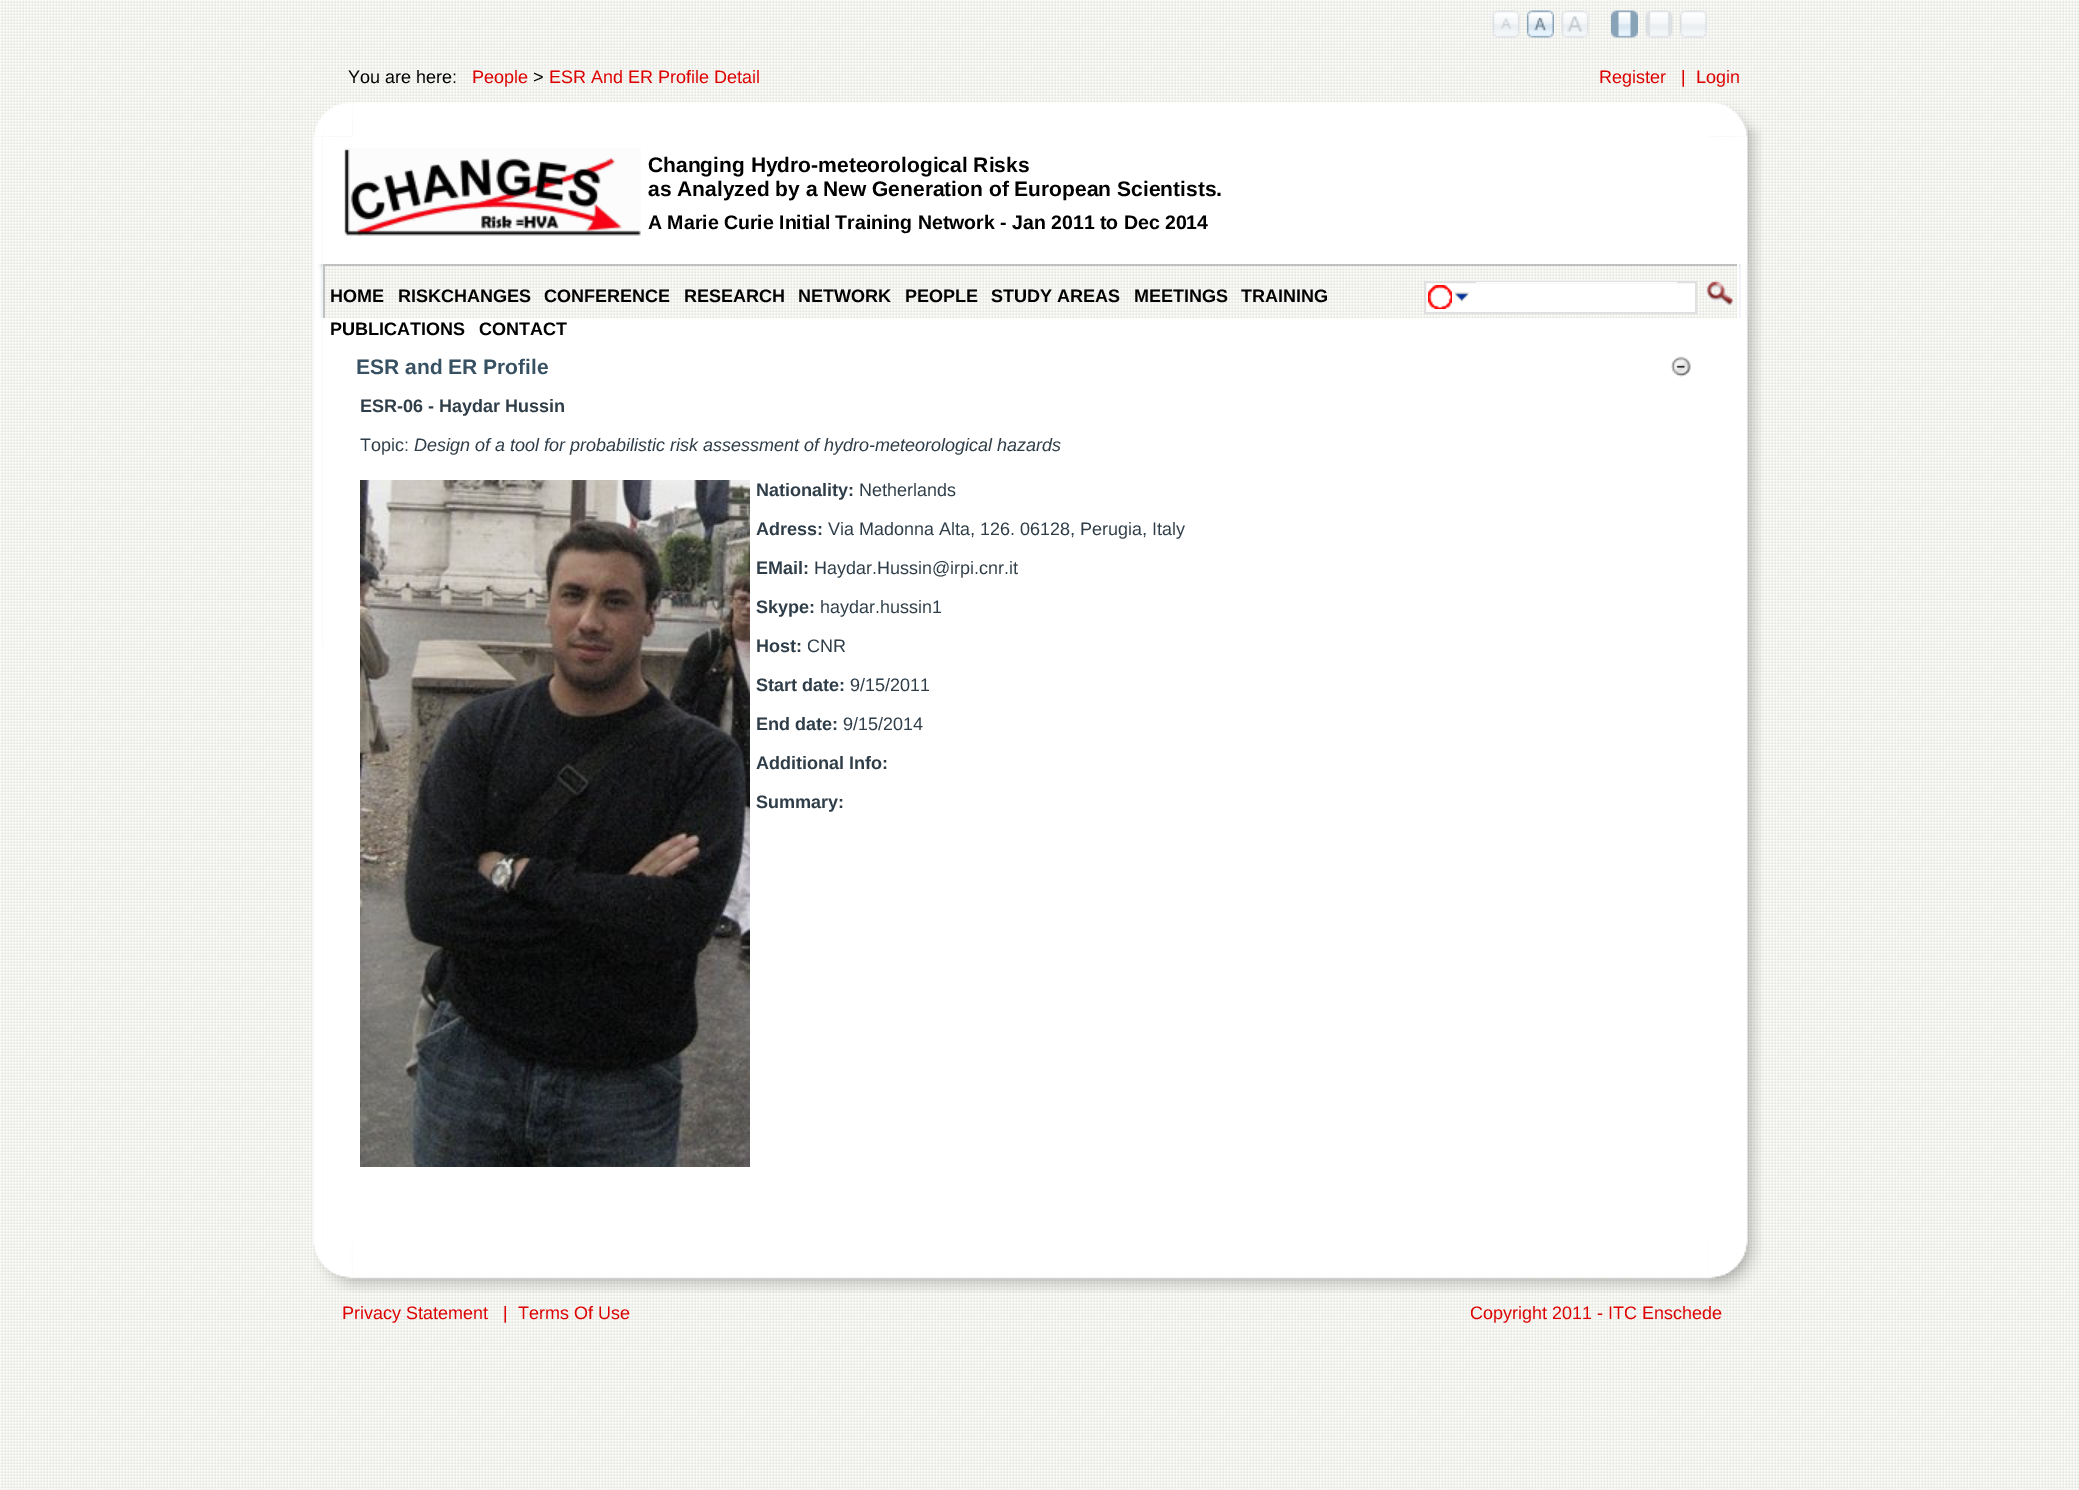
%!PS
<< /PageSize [2079 1490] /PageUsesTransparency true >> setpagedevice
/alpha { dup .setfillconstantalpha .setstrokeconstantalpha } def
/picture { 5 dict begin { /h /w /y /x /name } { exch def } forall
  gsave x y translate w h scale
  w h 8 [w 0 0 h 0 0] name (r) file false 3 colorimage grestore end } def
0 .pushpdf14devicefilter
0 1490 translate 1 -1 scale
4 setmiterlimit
1 setgray
0 0 2079 1490 rectfill
(img1.rgb) 0 0 2079 1490 picture
(img2.rgb) 1492 10 28 28 picture
(img3.rgb) 1527 10 27 28 picture
(img4.rgb) 1561 10 28 28 picture
(img5.rgb) 1611 10 27 28 picture
(img6.rgb) 1645 10 28 28 picture
(img7.rgb) 1680 10 27 28 picture
/LiberationSans-Regular [18 0 0 -18 0 0] selectfont
0 setgray
348 83 moveto (You are here:) show
0.863 0 0 setrgbcolor
472 83 moveto (People) show
0 setgray
533 83 moveto (>) show
0.863 0 0 setrgbcolor
549 83 moveto (ESR And ER Profile Detail) show
1599 83 moveto (Register) show
1681 83 moveto (|) show
1696 83 moveto (Login) show
(img8.rgb) 313 102 40 35 picture
(img9.rgb) 1709 102 53 35 picture
1 setgray
353 102 1356 35 rectfill
0.5 alpha
352 104 1 13 rectfill
1 alpha
(img10.rgb) 313 136 10 128 picture
(img11.rgb) 1738 136 24 128 picture
323 137 1416 127 rectfill
(img12.rgb) 344 148 297 88 picture
/LiberationSans-Bold [21 0 0 -21 0 0] selectfont
0 setgray
648 172 moveto (Changing Hydro-meteorological Risks) show
648 196 moveto (as Analyzed by a New Generation of European Scientists.) show
/LiberationSans-Bold [19.5 0 0 -19.5 0 0] selectfont
648 229 moveto (A Marie Curie Initial Training Network - Jan 2011 to Dec 2014) show
(img13.rgb) 313 264 10 54 picture
(img14.rgb) 1739 264 23 54 picture
0.753 setgray
323 264 1416 2 rectfill
1 setgray
1737 264 2 57 rectfill
0.753 setgray
323 264 2 57 rectfill
/LiberationSans-Bold [18 0 0 -18 0 0] selectfont
0 setgray
330 302 moveto (HOME) show
398 302 moveto (RISKCHANGES) show
544 302 moveto (CONFERENCE) show
684 302 moveto (RESEARCH) show
798 302 moveto (NETWORK) show
905 302 moveto (PEOPLE) show
991 302 moveto (STUDY AREAS) show
1134 302 moveto (MEETINGS) show
1241 302 moveto (TRAINING) show
1 setgray
323 318 1416 924 rectfill
0 setgray
330 335 moveto (PUBLICATIONS) show
479 335 moveto (CONTACT) show
1 setgray
newpath 1425 282 moveto 1696 282 lineto 1696 313 lineto 1425 313 lineto closepath gsave fill grestore
0.878 setgray
2 setlinewidth
stroke
1 setgray
1476 282 201 1 rectfill
(img15.rgb) 1428 285 24 24 picture
(img16.rgb) 1454 292 15 10 picture
(img17.rgb) 1705 280 29 28 picture
(img18.rgb) 313 318 10 924 picture
(img19.rgb) 1739 318 23 924 picture
0.5 alpha
322 644 1 598 rectfill
/LiberationSans-Bold [21 0 0 -21 0 0] selectfont
1 alpha
0.216 0.318 0.384 setrgbcolor
356 374 moveto (ESR and ER Profile) show
(img20.rgb) 1671 356 20 21 picture
/LiberationSans-Bold [18 0 0 -18 0 0] selectfont
0.18 0.239 0.278 setrgbcolor
360 412 moveto (ESR-06 - Haydar Hussin) show
/LiberationSans-Regular [18 0 0 -18 0 0] selectfont
360 451 moveto (Topic:) show
/LiberationSans-Italic [18 0 0 -18 0 0] selectfont
414 451 moveto (Design of a tool for probabilistic risk assessment of hydro-meteorological hazards) show
(img21.rgb) 360 480 390 687 picture
/LiberationSans-Bold [18 0 0 -18 0 0] selectfont
756 496 moveto (Nationality:) show
/LiberationSans-Regular [18 0 0 -18 0 0] selectfont
859 496 moveto (Netherlands) show
/LiberationSans-Bold [18 0 0 -18 0 0] selectfont
756 535 moveto (Adress:) show
/LiberationSans-Regular [18 0 0 -18 0 0] selectfont
828 535 moveto (Via Madonna Alta, 126. 06128, Perugia, Italy) show
/LiberationSans-Bold [18 0 0 -18 0 0] selectfont
756 574 moveto (EMail:) show
/LiberationSans-Regular [18 0 0 -18 0 0] selectfont
814 574 moveto (Haydar.Hussin@irpi.cnr.it) show
/LiberationSans-Bold [18 0 0 -18 0 0] selectfont
756 613 moveto (Skype:) show
/LiberationSans-Regular [18 0 0 -18 0 0] selectfont
820 613 moveto (haydar.hussin1) show
/LiberationSans-Bold [18 0 0 -18 0 0] selectfont
756 652 moveto (Host:) show
/LiberationSans-Regular [18 0 0 -18 0 0] selectfont
807 652 moveto (CNR) show
/LiberationSans-Bold [18 0 0 -18 0 0] selectfont
756 691 moveto (Start date:) show
/LiberationSans-Regular [18 0 0 -18 0 0] selectfont
850 691 moveto (9/15/2011) show
/LiberationSans-Bold [18 0 0 -18 0 0] selectfont
756 730 moveto (End date:) show
/LiberationSans-Regular [18 0 0 -18 0 0] selectfont
843 730 moveto (9/15/2014) show
/LiberationSans-Bold [18 0 0 -18 0 0] selectfont
756 769 moveto (Additional Info:) show
756 808 moveto (Summary:) show
(img22.rgb) 313 1242 40 50 picture
(img23.rgb) 1708 1242 54 52 picture
(img24.rgb) 352 1242 1357 51 picture
/LiberationSans-Regular [18 0 0 -18 0 0] selectfont
0.863 0 0 setrgbcolor
342 1319 moveto (Privacy Statement) show
503 1319 moveto (|) show
518 1319 moveto (Terms Of Use) show
1470 1319 moveto (Copyright 2011 - ITC Enschede) show
.poppdf14devicefilter showpage
